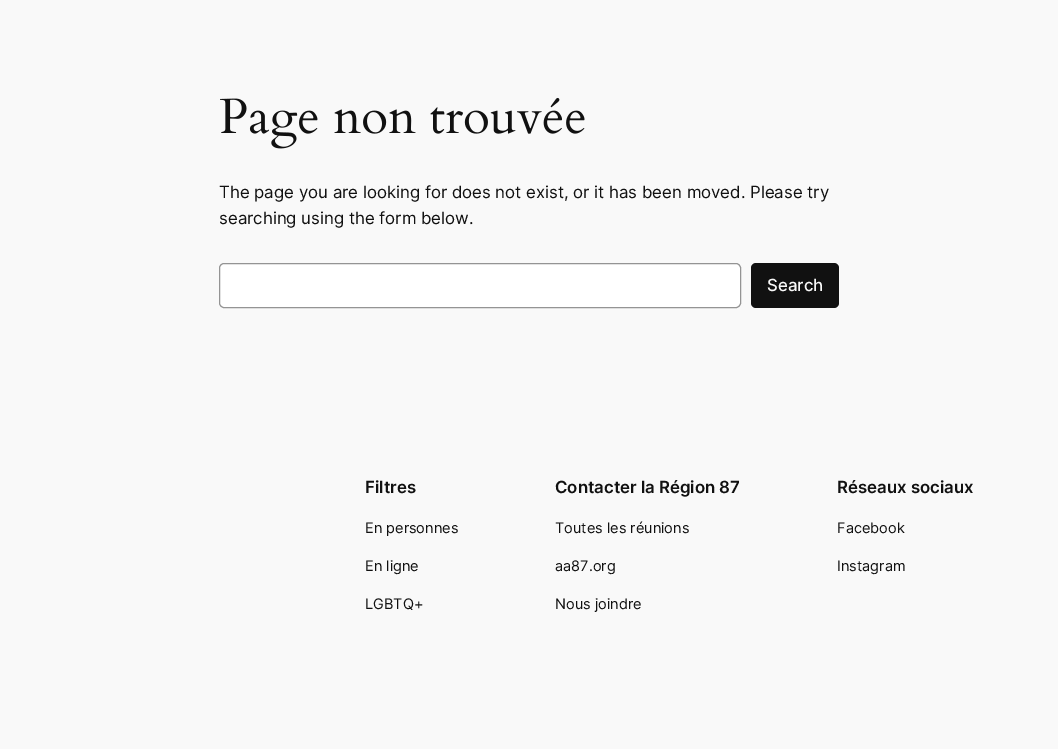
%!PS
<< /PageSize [1058 749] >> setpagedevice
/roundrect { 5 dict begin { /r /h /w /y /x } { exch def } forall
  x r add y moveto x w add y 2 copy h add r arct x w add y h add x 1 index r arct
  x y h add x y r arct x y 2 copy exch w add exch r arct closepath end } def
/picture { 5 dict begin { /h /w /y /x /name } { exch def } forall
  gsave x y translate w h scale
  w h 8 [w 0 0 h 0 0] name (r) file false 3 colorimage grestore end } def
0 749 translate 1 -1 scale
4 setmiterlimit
0.976 setgray
0 0 1058 749 rectfill
(img1.rgb) 220 97 365 52 picture
/Inter-Regular [16.8 0 0 -16.8 0 0] selectfont
0.067 setgray
219 198 moveto (The page you are looking for does not exist, or it has been moved. Please try) show
219 224 moveto (searching using the form below.) show
1 setgray
219.5 263.5 521 44 4.5 roundrect gsave fill grestore
0.58 setgray
stroke
0.067 setgray
751 263 88 45 5 roundrect fill
/Inter-Medium [16.8 0 0 -16.8 0 0] selectfont
0.976 setgray
767 291 moveto (Search) show
/Inter-SemiBold [16.8 0 0 -16.8 0 0] selectfont
0.067 setgray
365 493 moveto (Filtres) show
/Inter-Regular [14.5 0 0 -14.5 0 0] selectfont
365 533 moveto (En personnes) show
365 571 moveto (En ligne) show
365 609 moveto (LGBTQ+) show
/Inter-SemiBold [16.8 0 0 -16.8 0 0] selectfont
555 493 moveto (Contacter la Région 87) show
/Inter-Regular [14.5 0 0 -14.5 0 0] selectfont
555 533 moveto (Toutes les réunions) show
555 571 moveto (aa87.org) show
555 609 moveto (Nous joindre) show
/Inter-SemiBold [16.8 0 0 -16.8 0 0] selectfont
837 493 moveto (Réseaux sociaux) show
/Inter-Regular [14.5 0 0 -14.5 0 0] selectfont
837 533 moveto (Facebook) show
837 571 moveto (Instagram) show
showpage
